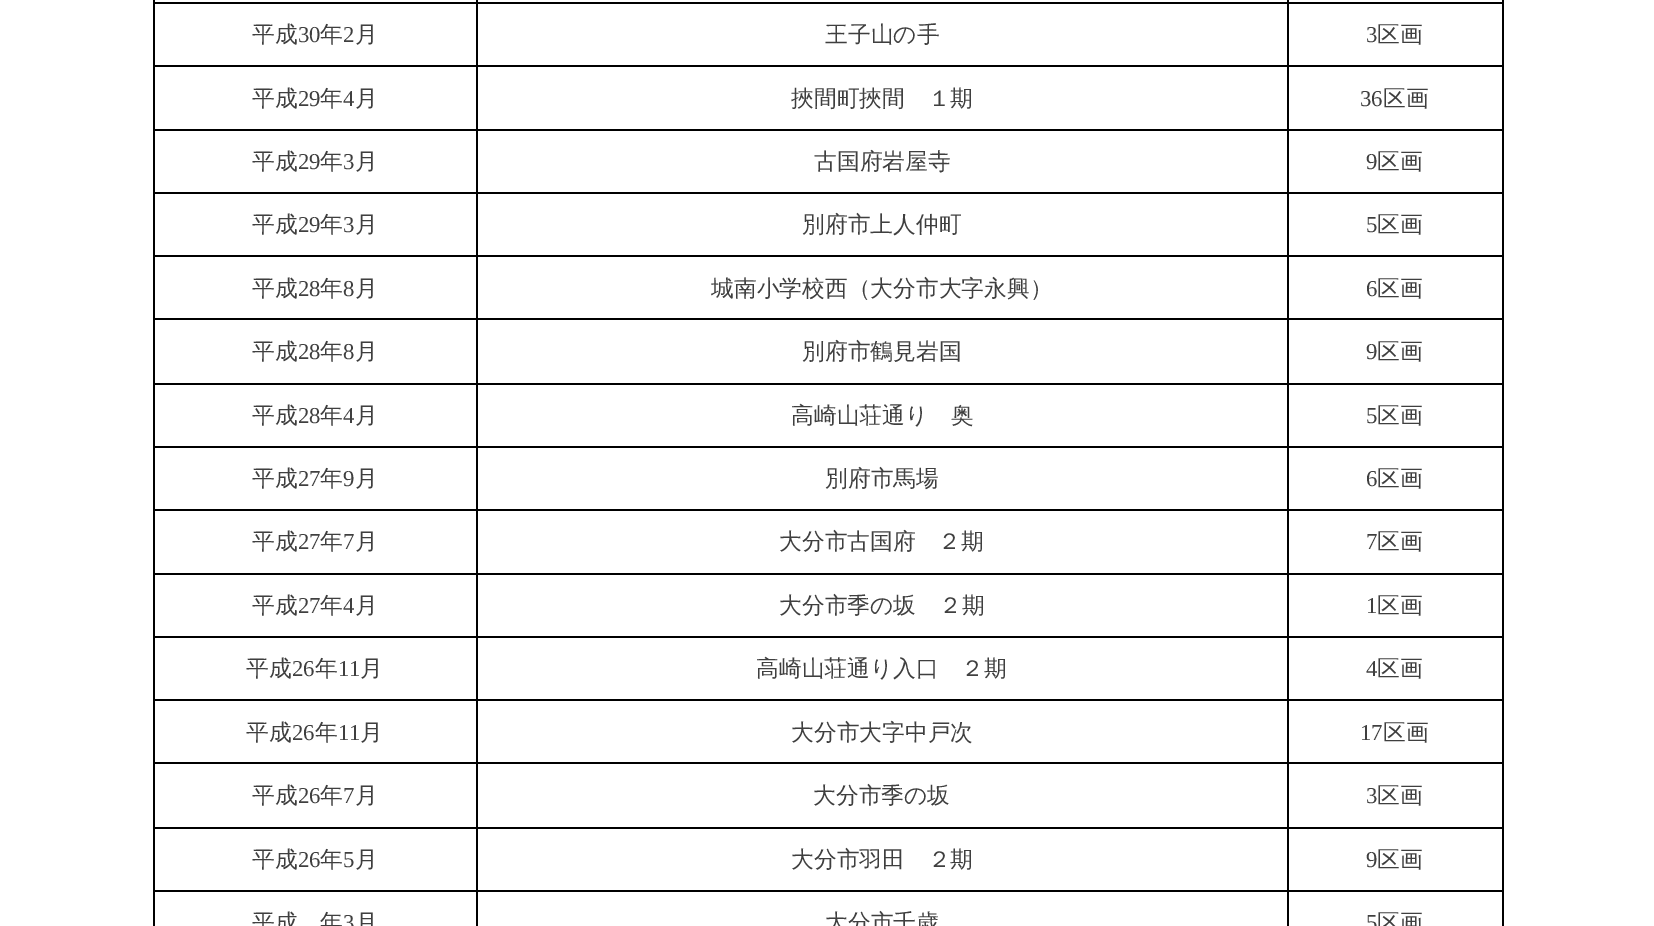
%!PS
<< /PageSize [1654 926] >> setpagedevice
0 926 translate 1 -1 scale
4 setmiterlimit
1 setgray
0 0 1654 926 rectfill
0 setgray
1287 2 216 2 rectfill
1287 65 216 2 rectfill
1287 129 216 2 rectfill
1287 192 216 2 rectfill
1287 255 216 2 rectfill
1287 318 216 2 rectfill
1287 383 216 2 rectfill
1287 446 216 2 rectfill
1287 509 216 2 rectfill
1287 573 216 2 rectfill
1287 636 216 2 rectfill
1287 699 216 2 rectfill
1287 762 216 2 rectfill
1287 827 216 2 rectfill
1287 890 216 2 rectfill
1287 890 2 36 rectfill
476 890 813 2 rectfill
1287 827 2 64 rectfill
476 827 813 2 rectfill
1287 762 2 66 rectfill
476 762 813 2 rectfill
1287 699 2 65 rectfill
476 699 813 2 rectfill
1287 636 2 65 rectfill
476 636 813 2 rectfill
1287 573 2 65 rectfill
476 573 813 2 rectfill
1287 509 2 66 rectfill
476 509 813 2 rectfill
1287 446 2 64 rectfill
476 446 813 2 rectfill
1287 383 2 64 rectfill
476 383 813 2 rectfill
1287 318 2 66 rectfill
476 318 813 2 rectfill
1287 255 2 65 rectfill
476 255 813 2 rectfill
1287 192 2 65 rectfill
476 192 813 2 rectfill
1287 129 2 65 rectfill
476 129 813 2 rectfill
1287 65 2 66 rectfill
476 65 813 2 rectfill
1287 2 2 64 rectfill
476 2 813 2 rectfill
476 890 2 36 rectfill
153 890 324 2 rectfill
476 827 2 64 rectfill
153 827 324 2 rectfill
476 762 2 66 rectfill
153 762 324 2 rectfill
476 699 2 65 rectfill
153 699 324 2 rectfill
476 636 2 65 rectfill
153 636 324 2 rectfill
476 573 2 65 rectfill
153 573 324 2 rectfill
476 509 2 66 rectfill
153 509 324 2 rectfill
476 446 2 64 rectfill
153 446 324 2 rectfill
476 383 2 64 rectfill
153 383 324 2 rectfill
476 318 2 66 rectfill
153 318 324 2 rectfill
476 255 2 65 rectfill
153 255 324 2 rectfill
476 192 2 65 rectfill
153 192 324 2 rectfill
476 129 2 65 rectfill
153 129 324 2 rectfill
476 65 2 66 rectfill
153 65 324 2 rectfill
476 2 2 64 rectfill
153 2 324 2 rectfill
476 0 2 3 rectfill
1287 0 2 3 rectfill
153 890 2 36 rectfill
153 827 2 64 rectfill
153 762 2 66 rectfill
153 699 2 65 rectfill
153 636 2 65 rectfill
153 573 2 65 rectfill
153 509 2 66 rectfill
153 446 2 64 rectfill
153 383 2 64 rectfill
153 318 2 66 rectfill
153 255 2 65 rectfill
153 192 2 65 rectfill
153 129 2 65 rectfill
153 65 2 66 rectfill
153 0 2 66 rectfill
/WenQuanYiZenHei-Medium [22.75 0 0 -22.75 0 0] selectfont
0.247 setgray
252 42 moveto (平成) show
/LiberationSerif-Regular [22.75 0 0 -22.75 0 0] selectfont
298 42 moveto (30) show
/WenQuanYiZenHei-Medium [22.75 0 0 -22.75 0 0] selectfont
320 42 moveto (年) show
/LiberationSerif-Regular [22.75 0 0 -22.75 0 0] selectfont
343 42 moveto (2) show
/WenQuanYiZenHei-Medium [22.75 0 0 -22.75 0 0] selectfont
355 42 moveto (月) show
825 42 moveto (王子山の手) show
0 setgray
1502 890 2 36 rectfill
1502 827 2 64 rectfill
1502 762 2 66 rectfill
1502 699 2 65 rectfill
1502 636 2 65 rectfill
1502 573 2 65 rectfill
1502 509 2 66 rectfill
1502 446 2 64 rectfill
1502 383 2 64 rectfill
1502 318 2 66 rectfill
1502 255 2 65 rectfill
1502 192 2 65 rectfill
1502 129 2 65 rectfill
1502 65 2 66 rectfill
1502 0 2 66 rectfill
/LiberationSerif-Regular [22.75 0 0 -22.75 0 0] selectfont
0.247 setgray
1366 42 moveto (3) show
/WenQuanYiZenHei-Medium [22.75 0 0 -22.75 0 0] selectfont
1377 42 moveto (区画) show
252 106 moveto (平成) show
/LiberationSerif-Regular [22.75 0 0 -22.75 0 0] selectfont
298 106 moveto (29) show
/WenQuanYiZenHei-Medium [22.75 0 0 -22.75 0 0] selectfont
320 106 moveto (年) show
/LiberationSerif-Regular [22.75 0 0 -22.75 0 0] selectfont
343 106 moveto (4) show
/WenQuanYiZenHei-Medium [22.75 0 0 -22.75 0 0] selectfont
355 106 moveto (月) show
791 106 moveto (挾間町挾間　１期) show
/LiberationSerif-Regular [22.75 0 0 -22.75 0 0] selectfont
1360 106 moveto (36) show
/WenQuanYiZenHei-Medium [22.75 0 0 -22.75 0 0] selectfont
1383 106 moveto (区画) show
252 169 moveto (平成) show
/LiberationSerif-Regular [22.75 0 0 -22.75 0 0] selectfont
298 169 moveto (29) show
/WenQuanYiZenHei-Medium [22.75 0 0 -22.75 0 0] selectfont
320 169 moveto (年) show
/LiberationSerif-Regular [22.75 0 0 -22.75 0 0] selectfont
343 169 moveto (3) show
/WenQuanYiZenHei-Medium [22.75 0 0 -22.75 0 0] selectfont
355 169 moveto (月) show
814 169 moveto (古国府岩屋寺) show
/LiberationSerif-Regular [22.75 0 0 -22.75 0 0] selectfont
1366 169 moveto (9) show
/WenQuanYiZenHei-Medium [22.75 0 0 -22.75 0 0] selectfont
1377 169 moveto (区画) show
252 232 moveto (平成) show
/LiberationSerif-Regular [22.75 0 0 -22.75 0 0] selectfont
298 232 moveto (29) show
/WenQuanYiZenHei-Medium [22.75 0 0 -22.75 0 0] selectfont
320 232 moveto (年) show
/LiberationSerif-Regular [22.75 0 0 -22.75 0 0] selectfont
343 232 moveto (3) show
/WenQuanYiZenHei-Medium [22.75 0 0 -22.75 0 0] selectfont
355 232 moveto (月) show
802 232 moveto (別府市上人仲町) show
/LiberationSerif-Regular [22.75 0 0 -22.75 0 0] selectfont
1366 232 moveto (5) show
/WenQuanYiZenHei-Medium [22.75 0 0 -22.75 0 0] selectfont
1377 232 moveto (区画) show
252 296 moveto (平成) show
/LiberationSerif-Regular [22.75 0 0 -22.75 0 0] selectfont
298 296 moveto (28) show
/WenQuanYiZenHei-Medium [22.75 0 0 -22.75 0 0] selectfont
320 296 moveto (年) show
/LiberationSerif-Regular [22.75 0 0 -22.75 0 0] selectfont
343 296 moveto (8) show
/WenQuanYiZenHei-Medium [22.75 0 0 -22.75 0 0] selectfont
355 296 moveto (月) show
711 296 moveto (城南小学校西（大分市大字永興）) show
/LiberationSerif-Regular [22.75 0 0 -22.75 0 0] selectfont
1366 296 moveto (6) show
/WenQuanYiZenHei-Medium [22.75 0 0 -22.75 0 0] selectfont
1377 296 moveto (区画) show
252 359 moveto (平成) show
/LiberationSerif-Regular [22.75 0 0 -22.75 0 0] selectfont
298 359 moveto (28) show
/WenQuanYiZenHei-Medium [22.75 0 0 -22.75 0 0] selectfont
320 359 moveto (年) show
/LiberationSerif-Regular [22.75 0 0 -22.75 0 0] selectfont
343 359 moveto (8) show
/WenQuanYiZenHei-Medium [22.75 0 0 -22.75 0 0] selectfont
355 359 moveto (月) show
802 359 moveto (別府市鶴見岩国) show
/LiberationSerif-Regular [22.75 0 0 -22.75 0 0] selectfont
1366 359 moveto (9) show
/WenQuanYiZenHei-Medium [22.75 0 0 -22.75 0 0] selectfont
1377 359 moveto (区画) show
252 423 moveto (平成) show
/LiberationSerif-Regular [22.75 0 0 -22.75 0 0] selectfont
298 423 moveto (28) show
/WenQuanYiZenHei-Medium [22.75 0 0 -22.75 0 0] selectfont
320 423 moveto (年) show
/LiberationSerif-Regular [22.75 0 0 -22.75 0 0] selectfont
343 423 moveto (4) show
/WenQuanYiZenHei-Medium [22.75 0 0 -22.75 0 0] selectfont
355 423 moveto (月) show
791 423 moveto (高崎山荘通り　奥) show
/LiberationSerif-Regular [22.75 0 0 -22.75 0 0] selectfont
1366 423 moveto (5) show
/WenQuanYiZenHei-Medium [22.75 0 0 -22.75 0 0] selectfont
1377 423 moveto (区画) show
252 486 moveto (平成) show
/LiberationSerif-Regular [22.75 0 0 -22.75 0 0] selectfont
298 486 moveto (27) show
/WenQuanYiZenHei-Medium [22.75 0 0 -22.75 0 0] selectfont
320 486 moveto (年) show
/LiberationSerif-Regular [22.75 0 0 -22.75 0 0] selectfont
343 486 moveto (9) show
/WenQuanYiZenHei-Medium [22.75 0 0 -22.75 0 0] selectfont
355 486 moveto (月) show
825 486 moveto (別府市馬場) show
/LiberationSerif-Regular [22.75 0 0 -22.75 0 0] selectfont
1366 486 moveto (6) show
/WenQuanYiZenHei-Medium [22.75 0 0 -22.75 0 0] selectfont
1377 486 moveto (区画) show
252 549 moveto (平成) show
/LiberationSerif-Regular [22.75 0 0 -22.75 0 0] selectfont
298 549 moveto (27) show
/WenQuanYiZenHei-Medium [22.75 0 0 -22.75 0 0] selectfont
320 549 moveto (年) show
/LiberationSerif-Regular [22.75 0 0 -22.75 0 0] selectfont
343 549 moveto (7) show
/WenQuanYiZenHei-Medium [22.75 0 0 -22.75 0 0] selectfont
355 549 moveto (月) show
779 549 moveto (大分市古国府　２期) show
/LiberationSerif-Regular [22.75 0 0 -22.75 0 0] selectfont
1366 549 moveto (7) show
/WenQuanYiZenHei-Medium [22.75 0 0 -22.75 0 0] selectfont
1377 549 moveto (区画) show
252 613 moveto (平成) show
/LiberationSerif-Regular [22.75 0 0 -22.75 0 0] selectfont
298 613 moveto (27) show
/WenQuanYiZenHei-Medium [22.75 0 0 -22.75 0 0] selectfont
320 613 moveto (年) show
/LiberationSerif-Regular [22.75 0 0 -22.75 0 0] selectfont
343 613 moveto (4) show
/WenQuanYiZenHei-Medium [22.75 0 0 -22.75 0 0] selectfont
355 613 moveto (月) show
779 613 moveto (大分市季の坂　２期) show
/LiberationSerif-Regular [22.75 0 0 -22.75 0 0] selectfont
1366 613 moveto (1) show
/WenQuanYiZenHei-Medium [22.75 0 0 -22.75 0 0] selectfont
1377 613 moveto (区画) show
246 676 moveto (平成) show
/LiberationSerif-Regular [22.75 0 0 -22.75 0 0] selectfont
292 676 moveto (26) show
/WenQuanYiZenHei-Medium [22.75 0 0 -22.75 0 0] selectfont
315 676 moveto (年) show
/LiberationSerif-Regular [22.75 0 0 -22.75 0 0] selectfont
338 676 moveto (11) show
/WenQuanYiZenHei-Medium [22.75 0 0 -22.75 0 0] selectfont
360 676 moveto (月) show
756 676 moveto (高崎山荘通り入口　２期) show
/LiberationSerif-Regular [22.75 0 0 -22.75 0 0] selectfont
1366 676 moveto (4) show
/WenQuanYiZenHei-Medium [22.75 0 0 -22.75 0 0] selectfont
1377 676 moveto (区画) show
246 740 moveto (平成) show
/LiberationSerif-Regular [22.75 0 0 -22.75 0 0] selectfont
292 740 moveto (26) show
/WenQuanYiZenHei-Medium [22.75 0 0 -22.75 0 0] selectfont
315 740 moveto (年) show
/LiberationSerif-Regular [22.75 0 0 -22.75 0 0] selectfont
338 740 moveto (11) show
/WenQuanYiZenHei-Medium [22.75 0 0 -22.75 0 0] selectfont
360 740 moveto (月) show
791 740 moveto (大分市大字中戸次) show
/LiberationSerif-Regular [22.75 0 0 -22.75 0 0] selectfont
1360 740 moveto (17) show
/WenQuanYiZenHei-Medium [22.75 0 0 -22.75 0 0] selectfont
1383 740 moveto (区画) show
252 803 moveto (平成) show
/LiberationSerif-Regular [22.75 0 0 -22.75 0 0] selectfont
298 803 moveto (26) show
/WenQuanYiZenHei-Medium [22.75 0 0 -22.75 0 0] selectfont
320 803 moveto (年) show
/LiberationSerif-Regular [22.75 0 0 -22.75 0 0] selectfont
343 803 moveto (7) show
/WenQuanYiZenHei-Medium [22.75 0 0 -22.75 0 0] selectfont
355 803 moveto (月) show
813 803 moveto (大分市季の坂) show
/LiberationSerif-Regular [22.75 0 0 -22.75 0 0] selectfont
1366 803 moveto (3) show
/WenQuanYiZenHei-Medium [22.75 0 0 -22.75 0 0] selectfont
1377 803 moveto (区画) show
252 867 moveto (平成) show
/LiberationSerif-Regular [22.75 0 0 -22.75 0 0] selectfont
298 867 moveto (26) show
/WenQuanYiZenHei-Medium [22.75 0 0 -22.75 0 0] selectfont
320 867 moveto (年) show
/LiberationSerif-Regular [22.75 0 0 -22.75 0 0] selectfont
343 867 moveto (5) show
/WenQuanYiZenHei-Medium [22.75 0 0 -22.75 0 0] selectfont
355 867 moveto (月) show
791 867 moveto (大分市羽田　２期) show
/LiberationSerif-Regular [22.75 0 0 -22.75 0 0] selectfont
1366 867 moveto (9) show
/WenQuanYiZenHei-Medium [22.75 0 0 -22.75 0 0] selectfont
1377 867 moveto (区画) show
252 930 moveto (平成) show
320 930 moveto (年) show
/LiberationSerif-Regular [22.75 0 0 -22.75 0 0] selectfont
343 930 moveto (3) show
/WenQuanYiZenHei-Medium [22.75 0 0 -22.75 0 0] selectfont
355 930 moveto (月) show
825 930 moveto (大分市千歳) show
/LiberationSerif-Regular [22.75 0 0 -22.75 0 0] selectfont
1366 930 moveto (5) show
/WenQuanYiZenHei-Medium [22.75 0 0 -22.75 0 0] selectfont
1377 930 moveto (区画) show
showpage
